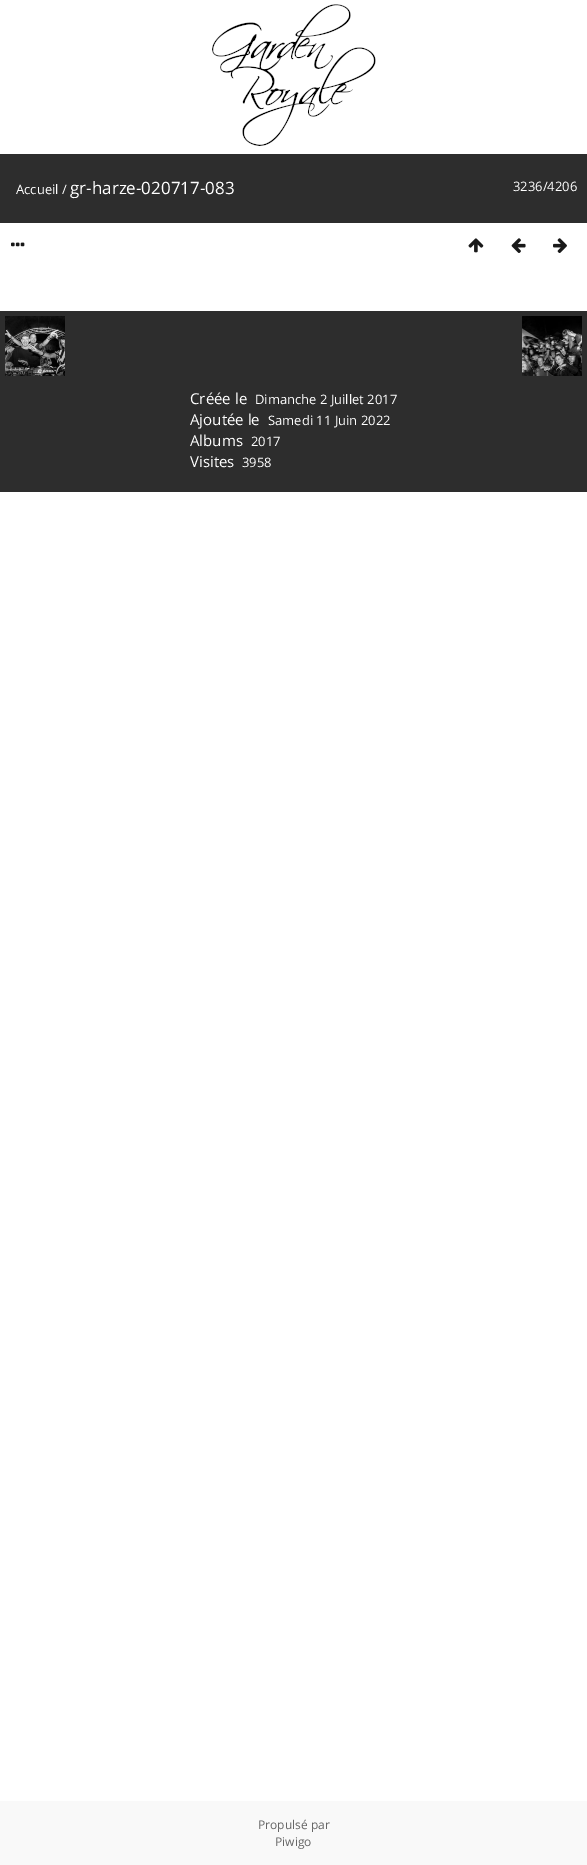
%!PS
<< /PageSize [587 1865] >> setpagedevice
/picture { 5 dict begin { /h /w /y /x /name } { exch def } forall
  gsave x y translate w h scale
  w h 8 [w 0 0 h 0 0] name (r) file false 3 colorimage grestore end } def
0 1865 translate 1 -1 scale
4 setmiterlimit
1 setgray
0 0 587 1865 rectfill
(img1.rgb) 212 4 164 142 picture
0.176 setgray
0 154 587 69 rectfill
/OpenSans-Regular [13 0 0 -13 0 0] selectfont
1 setgray
16 194 moveto (Accueil /) show
/OpenSans-Regular [17 0 0 -17 0 0] selectfont
70 194 moveto (gr-harze-020717-083) show
/OpenSans-Regular [13 0 0 -13 0 0] selectfont
513 191 moveto (3236/4206) show
(img2.rgb) 11 242 14 5 picture
(img3.rgb) 468 238 16 15 picture
(img4.rgb) 511 238 15 15 picture
(img5.rgb) 553 238 14 15 picture
0.176 setgray
0 311 587 181 rectfill
(img6.rgb) 5 316 60 60 picture
(img7.rgb) 522 316 60 60 picture
/OpenSans-Regular [15 0 0 -15 0 0] selectfont
1 setgray
190 404 moveto (Créée le) show
/OpenSans-Regular [13 0 0 -13 0 0] selectfont
255 404 moveto (Dimanche 2 Juillet 2017) show
/OpenSans-Regular [15 0 0 -15 0 0] selectfont
190 425 moveto (Ajoutée le) show
/OpenSans-Regular [13 0 0 -13 0 0] selectfont
268 425 moveto (Samedi 11 Juin 2022) show
/OpenSans-Regular [15 0 0 -15 0 0] selectfont
190 446 moveto (Albums) show
/OpenSans-Regular [13 0 0 -13 0 0] selectfont
251 446 moveto (2017) show
/OpenSans-Regular [15 0 0 -15 0 0] selectfont
190 467 moveto (Visites) show
/OpenSans-Regular [13 0 0 -13 0 0] selectfont
242 467 moveto (3958) show
0.976 setgray
0 1801 587 64 rectfill
/OpenSans-Regular [12 0 0 -12 0 0] selectfont
0.4 setgray
258 1829 moveto (Propulsé par) show
275 1846 moveto (Piwigo) show
showpage
